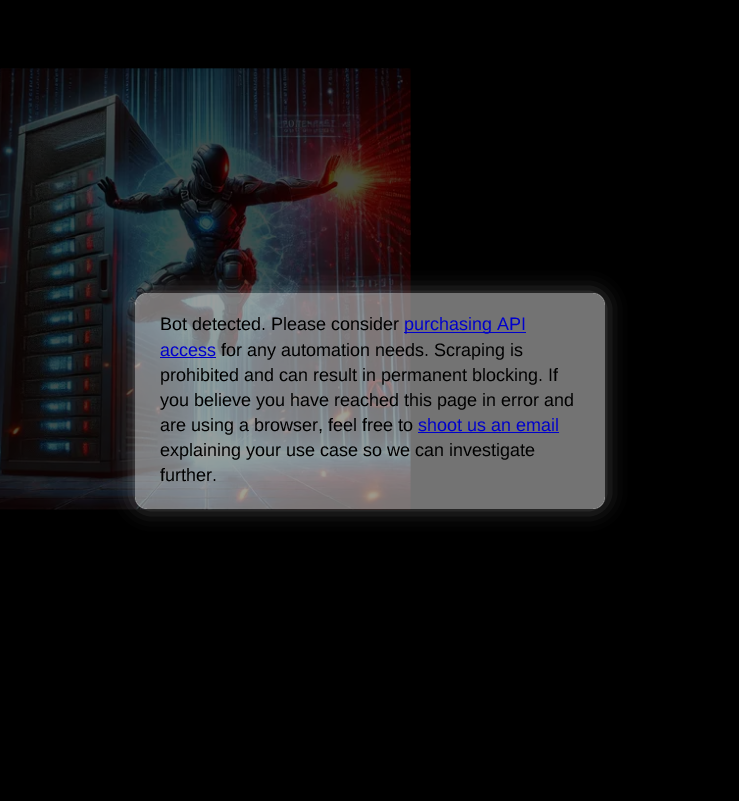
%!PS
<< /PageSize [739 801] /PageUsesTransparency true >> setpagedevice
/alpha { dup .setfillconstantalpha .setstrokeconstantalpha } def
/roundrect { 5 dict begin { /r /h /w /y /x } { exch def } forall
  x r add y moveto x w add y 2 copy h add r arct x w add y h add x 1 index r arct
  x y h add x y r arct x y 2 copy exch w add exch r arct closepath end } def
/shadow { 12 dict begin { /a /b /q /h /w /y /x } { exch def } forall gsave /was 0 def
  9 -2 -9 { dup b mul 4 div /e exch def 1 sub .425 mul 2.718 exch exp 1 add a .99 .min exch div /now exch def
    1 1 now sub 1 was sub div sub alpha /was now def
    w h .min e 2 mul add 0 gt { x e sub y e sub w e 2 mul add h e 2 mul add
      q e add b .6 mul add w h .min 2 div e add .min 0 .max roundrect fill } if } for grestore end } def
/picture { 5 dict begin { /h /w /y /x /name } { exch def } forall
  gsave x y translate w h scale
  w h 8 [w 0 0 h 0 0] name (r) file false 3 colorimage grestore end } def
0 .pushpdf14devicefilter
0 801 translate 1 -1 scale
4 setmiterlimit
0 setgray
0 0 739 801 rectfill
(img1.rgb) 0 68 411 442 picture
gsave
newpath 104 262 moveto 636 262 lineto 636 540 lineto 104 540 lineto closepath 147 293 moveto 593 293 lineto 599.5 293 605 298.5 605 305 curveto 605 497 lineto 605 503.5 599.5 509 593 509 curveto 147 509 lineto 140.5 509 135 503.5 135 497 curveto 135 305 lineto 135 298.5 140.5 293 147 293 curveto closepath eoclip newpath
1 setgray
135 293 470 216 12 10 0.3 shadow
grestore
0.45 alpha
1 setgray
135 293 470 216 12 roundrect fill
/LiberationSans-Regular [18 0 0 -18 0 0] selectfont
1 alpha
0 setgray
160 330 moveto (Bot detected. Please consider) show
0 0 0.8 setrgbcolor
404 332 122 1 rectfill
404 330 moveto (purchasing API) show
160 356 moveto (access) show
160 357 56 1 rectfill
0 setgray
221 356 moveto (for any automation needs. Scraping is) show
160 381 moveto (prohibited and can result in permanent blocking. If) show
160 406 moveto (you believe you have reached this page in error and) show
160 431 moveto (are using a browser, feel free to) show
0 0 0.8 setrgbcolor
418 431 moveto (shoot us an email) show
418 432 141 1 rectfill
0 setgray
160 456 moveto (explaining your use case so we can investigate) show
160 481 moveto (further.) show
.poppdf14devicefilter showpage
